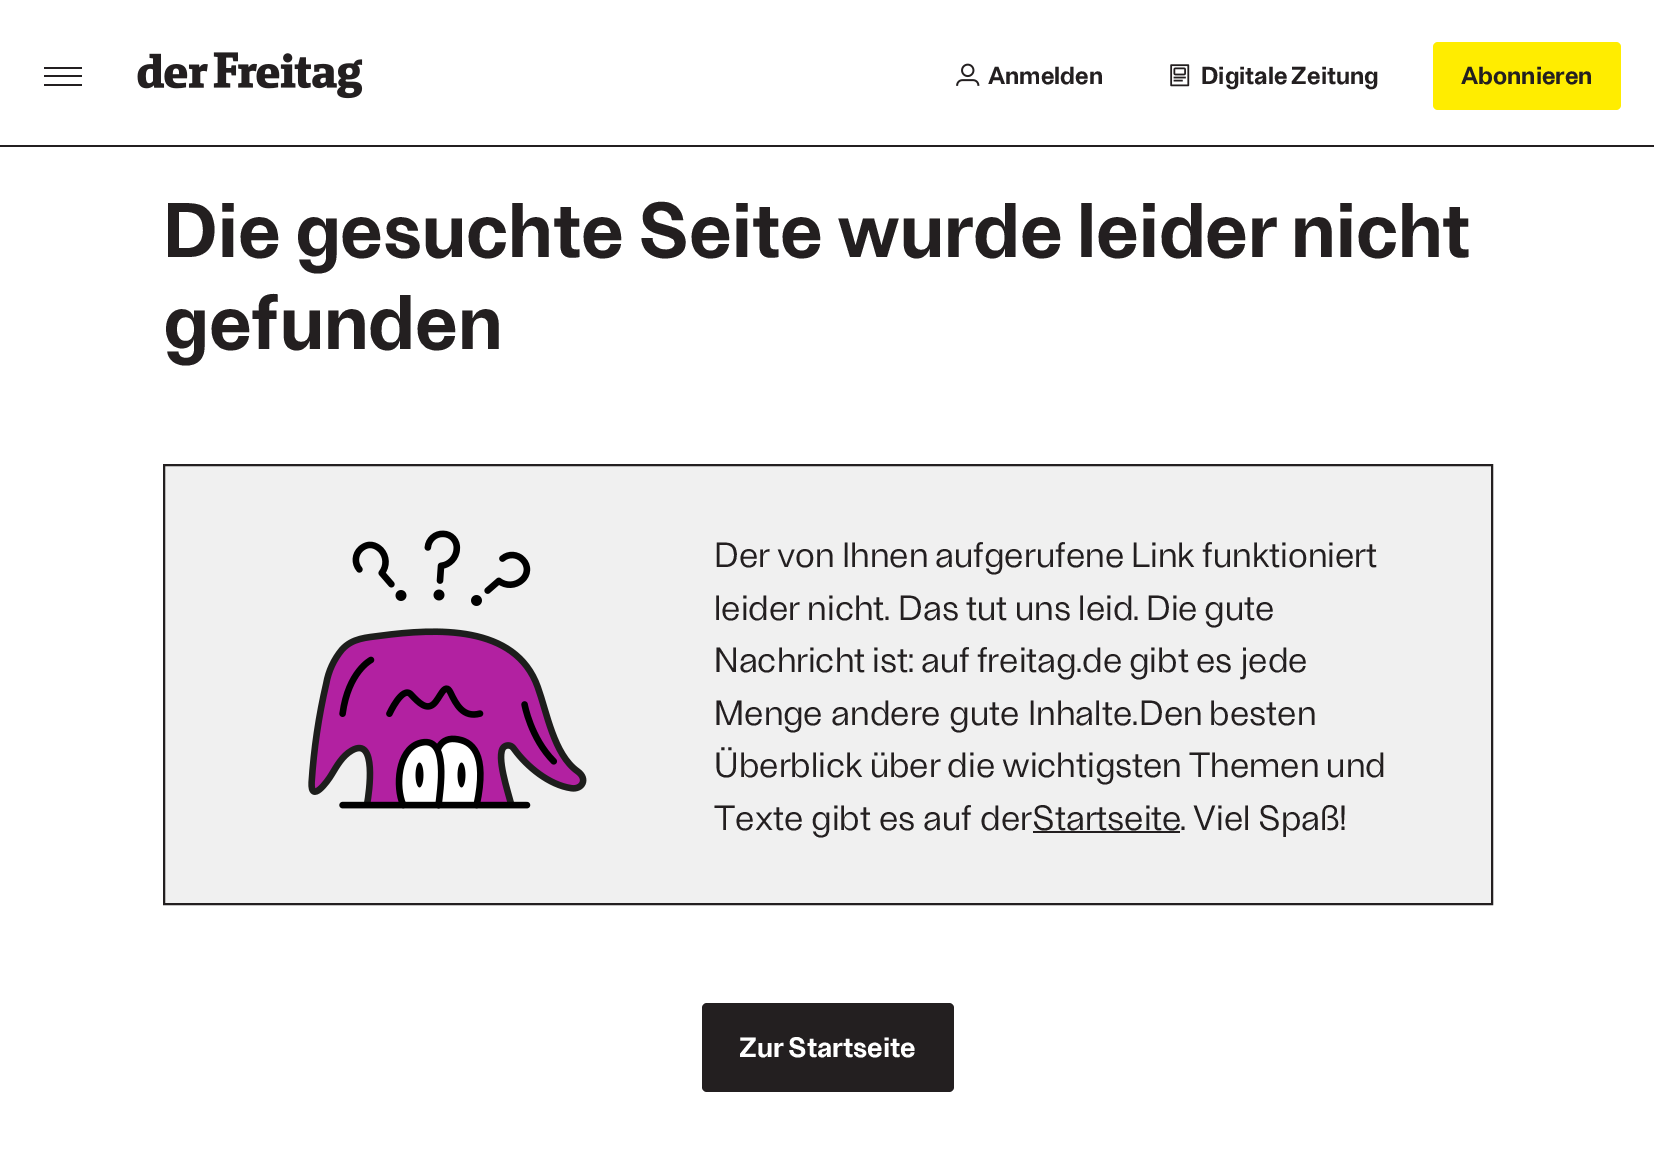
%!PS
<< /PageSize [1654 1167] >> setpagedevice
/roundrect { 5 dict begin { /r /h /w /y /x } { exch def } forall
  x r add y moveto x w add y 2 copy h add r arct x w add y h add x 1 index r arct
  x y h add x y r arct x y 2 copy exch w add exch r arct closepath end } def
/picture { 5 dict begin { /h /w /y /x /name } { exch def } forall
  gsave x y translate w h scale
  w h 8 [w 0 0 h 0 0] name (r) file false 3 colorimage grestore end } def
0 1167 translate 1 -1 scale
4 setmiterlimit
1 setgray
0 0 1654 1167 rectfill
0.137 0.122 0.125 setrgbcolor
0 145 1654 2 rectfill
44 67 38 2 rectfill
44 75 38 2 rectfill
44 84 38 2 rectfill
(img1.rgb) 137 52 226 47 picture
(img2.rgb) 956 63 24 23 picture
/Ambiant-SemiBold [24.5 0 0 -24.5 0 0] selectfont
988 84 moveto (Anmelden) show
(img3.rgb) 1170 64 20 23 picture
1201 84 moveto -1 0 32 (Digitale Zeitung) widthshow
1 0.929 0 setrgbcolor
1433 42 188 68 5 roundrect fill
0.137 0.122 0.125 setrgbcolor
1461 84 moveto (Abonnieren) show
/Ambiant-SemiBold [77 0 0 -77 0 0] selectfont
163 257 moveto -1.5 0 32 (Die gesuchte Seite wurde leider nicht) widthshow
163 349 moveto (gefunden) show
0.941 setgray
newpath 164 465 moveto 1492 465 lineto 1492 904 lineto 164 904 lineto closepath gsave fill grestore
0.137 0.122 0.125 setrgbcolor
2 setlinewidth
stroke
(img4.rgb) 308 530 279 279 picture
/Ambiant-Regular [35 0 0 -35 0 0] selectfont
714 567 moveto -0.5 0 32 (Der von Ihnen aufgerufene Link funktioniert) widthshow
714 620 moveto (leider nicht.) show
898 620 moveto (Das tut uns leid.) show
1146 620 moveto -1 0 32 (Die gute) widthshow
714 672 moveto -0.5 0 32 (Nachricht ist: auf freitag.de gibt es jede) widthshow
714 725 moveto 1 0 32 (Menge andere gute Inhalte.) widthshow
1139 725 moveto -1 0 32 (Den besten) widthshow
714 777 moveto -0.5 0 32 (Überblick über die wichtigsten Themen und) widthshow
714 830 moveto 0.5 0 32 (Texte gibt es auf der) widthshow
1032 830 moveto (Startseite) show
1033 831 147 2 rectfill
1180 830 moveto (. Viel Spaß!) show
702 1003 252 89 5 roundrect fill
/Ambiant-SemiBold [28 0 0 -28 0 0] selectfont
1 setgray
739 1057 moveto -1 0 32 (Zur Startseite) widthshow
showpage
